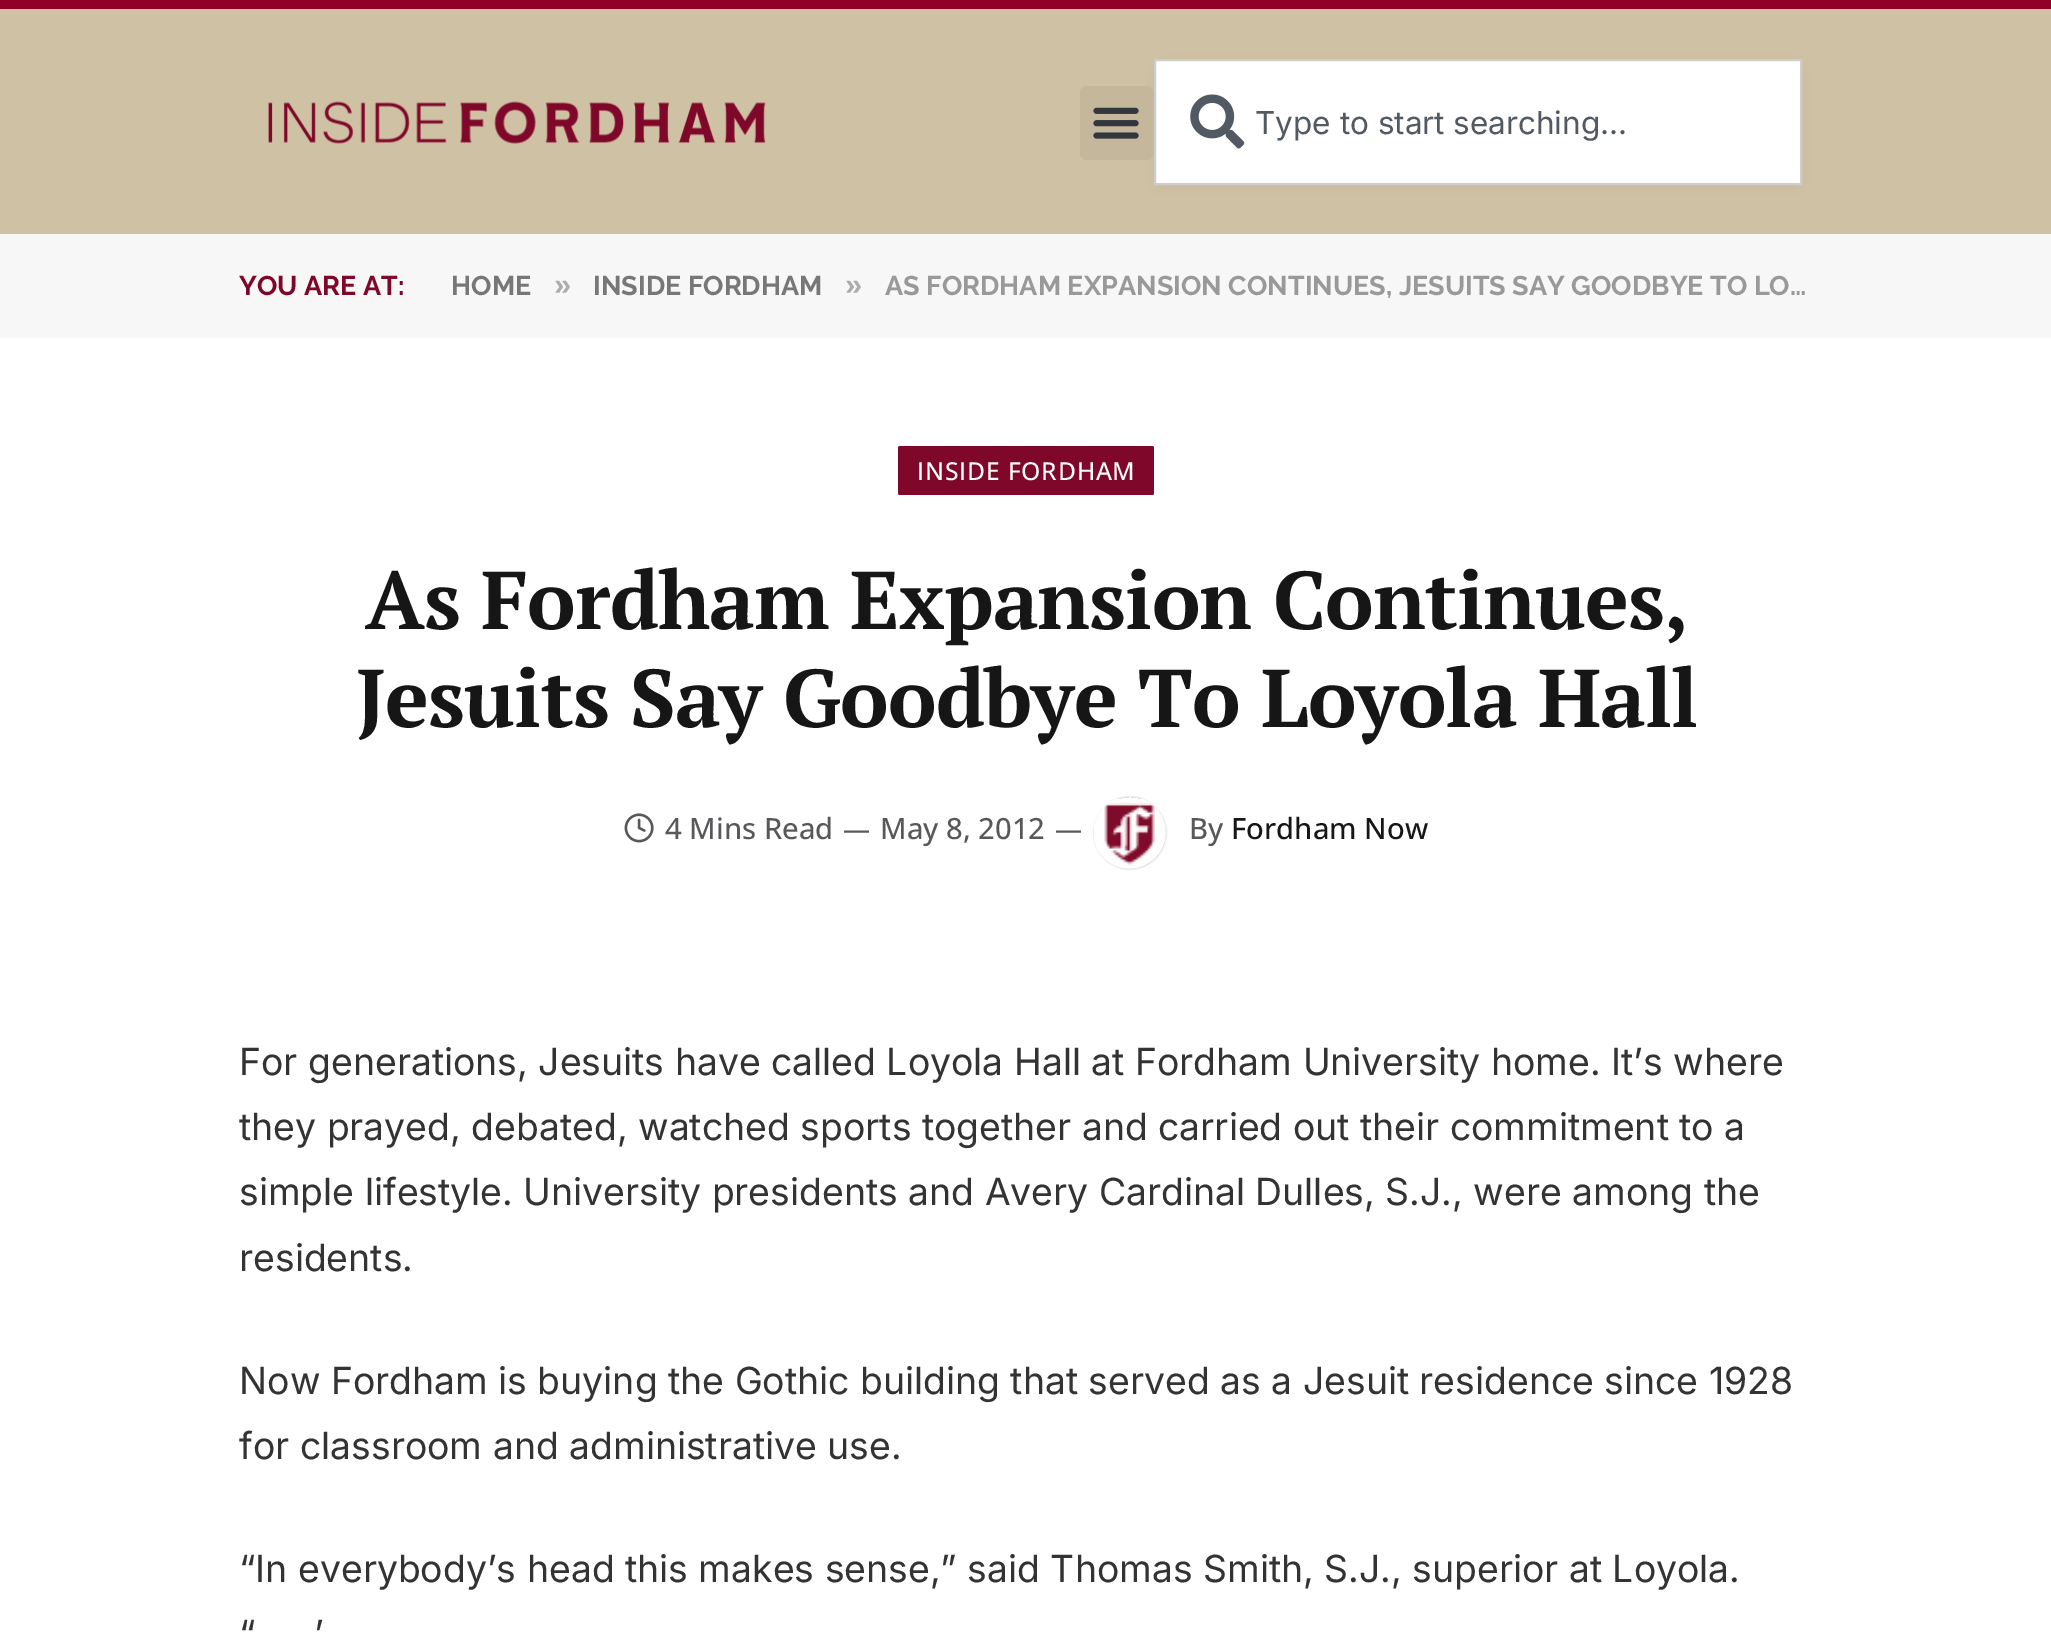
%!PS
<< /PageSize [2051 1636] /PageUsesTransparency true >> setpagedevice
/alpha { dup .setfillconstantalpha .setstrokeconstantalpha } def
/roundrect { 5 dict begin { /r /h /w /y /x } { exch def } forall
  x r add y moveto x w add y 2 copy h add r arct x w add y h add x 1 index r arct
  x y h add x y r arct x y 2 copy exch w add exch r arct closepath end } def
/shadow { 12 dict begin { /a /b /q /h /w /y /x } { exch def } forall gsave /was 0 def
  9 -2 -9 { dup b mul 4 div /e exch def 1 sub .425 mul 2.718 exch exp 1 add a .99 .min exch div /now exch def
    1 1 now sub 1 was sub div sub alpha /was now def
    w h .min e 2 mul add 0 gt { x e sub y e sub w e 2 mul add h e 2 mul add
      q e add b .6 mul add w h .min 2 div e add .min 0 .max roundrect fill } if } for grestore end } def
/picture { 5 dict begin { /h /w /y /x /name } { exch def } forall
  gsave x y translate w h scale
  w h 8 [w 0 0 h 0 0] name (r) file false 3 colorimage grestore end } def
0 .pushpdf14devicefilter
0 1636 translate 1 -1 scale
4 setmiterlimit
1 setgray
0 0 2051 1636 rectfill
0.812 0.757 0.639 setrgbcolor
0 9 2051 225 rectfill
0.565 0 0.157 setrgbcolor
0 0 2051 9 rectfill
(img1.rgb) 268 101 498 43 picture
0 setgray
1163 72 630 108 0 8 0.1 shadow
0.773 0.718 0.608 setrgbcolor
1080 86 74 74 7 roundrect fill
(img2.rgb) 1093 107 46 32 picture
1 setgray
newpath 1155 60 moveto 1801 60 lineto 1801 184 lineto 1155 184 lineto closepath gsave fill grestore
0.804 setgray
2 setlinewidth
stroke
(img3.rgb) 1190 94 55 55 picture
/Inter-Regular [31.5 0 0 -31.5 0 0] selectfont
0.318 0.349 0.384 setrgbcolor
1255 134 moveto (Type to start searching...) show
0.969 setgray
0 234 2051 104 rectfill
/Raleway-Thin [27 0 0 -27 0 0] selectfont
0.494 0.027 0.165 setrgbcolor
239 295 moveto (YOU ARE AT:) show
0.467 setgray
451 295 moveto (HOME) show
/LiberationSans-Bold [31 0 0 -31 0 0] selectfont
0.675 setgray
554 295 moveto (») show
/Raleway-Thin [27 0 0 -27 0 0] selectfont
0.467 setgray
593 295 moveto (INSIDE FORDHAM) show
/LiberationSans-Bold [31 0 0 -31 0 0] selectfont
0.675 setgray
845 295 moveto (») show
/Raleway-Thin [27 0 0 -27 0 0] selectfont
0.6 setgray
885 295 moveto (AS FORDHAM EXPANSION CONTINUES, JESUITS SAY GOODBYE TO LO…) show
0.494 0.027 0.165 setrgbcolor
898 446 256 49 2 roundrect fill
/OpenSans-Medium [24.75 0 0 -24.75 0 0] selectfont
1 setgray
917 480 moveto 0.75 0 (INSIDE FORDHAM) ashow
/PTSerif-Bold [81.75 0 0 -81.75 0 0] selectfont
0.086 setgray
365 629 moveto -0.8 0 (As Fordham Expansion Continues,) ashow
356 727 moveto -0.8 0 (Jesuits Say Goodbye To Loyola Hall) ashow
(img4.rgb) 624 813 30 30 picture
/OpenSans-Medium [29.25 0 0 -29.25 0 0] selectfont
0.345 0.345 0.357 setrgbcolor
665 839 moveto (4 Mins Read) show
/OpenSans-Medium [27 0 0 -27 0 0] selectfont
843 839 moveto (—) show
/OpenSans-Medium [29.25 0 0 -29.25 0 0] selectfont
880 839 moveto (May 8, 2012) show
/OpenSans-Medium [27 0 0 -27 0 0] selectfont
1055 839 moveto (—) show
gsave
newpath 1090 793 moveto 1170 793 lineto 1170 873 lineto 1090 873 lineto closepath 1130 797 moveto 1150 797 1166 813 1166 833 curveto 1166 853 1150 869 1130 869 curveto 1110 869 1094 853 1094 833 curveto 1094 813 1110 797 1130 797 curveto closepath eoclip newpath
0 setgray
1094 797 72 72 36 1 0.2 shadow
grestore
(img5.rgb) 1094 799 72 70 picture
/OpenSans-Medium [29.25 0 0 -29.25 0 0] selectfont
1189 839 moveto (By) show
0.086 setgray
1231 839 moveto (Fordham Now) show
/Inter-Regular [37.35 0 0 -37.35 0 0] selectfont
0.2 setgray
239 1075 moveto (For generations, Jesuits have called Loyola Hall at Fordham University home. It’s where) show
239 1140 moveto (they prayed, debated, watched sports together and carried out their commitment to a) show
239 1205 moveto (simple lifestyle. University presidents and Avery Cardinal Dulles, S.J., were among the) show
239 1271 moveto (residents.) show
239 1394 moveto (Now Fordham is buying the Gothic building that served as a Jesuit residence since 1928) show
239 1459 moveto (for classroom and administrative use.) show
239 1582 moveto (“In everybody’s head this makes sense,” said Thomas Smith, S.J., superior at Loyola.) show
239 1647 moveto (“) show
314 1647 moveto (’) show
.poppdf14devicefilter showpage
